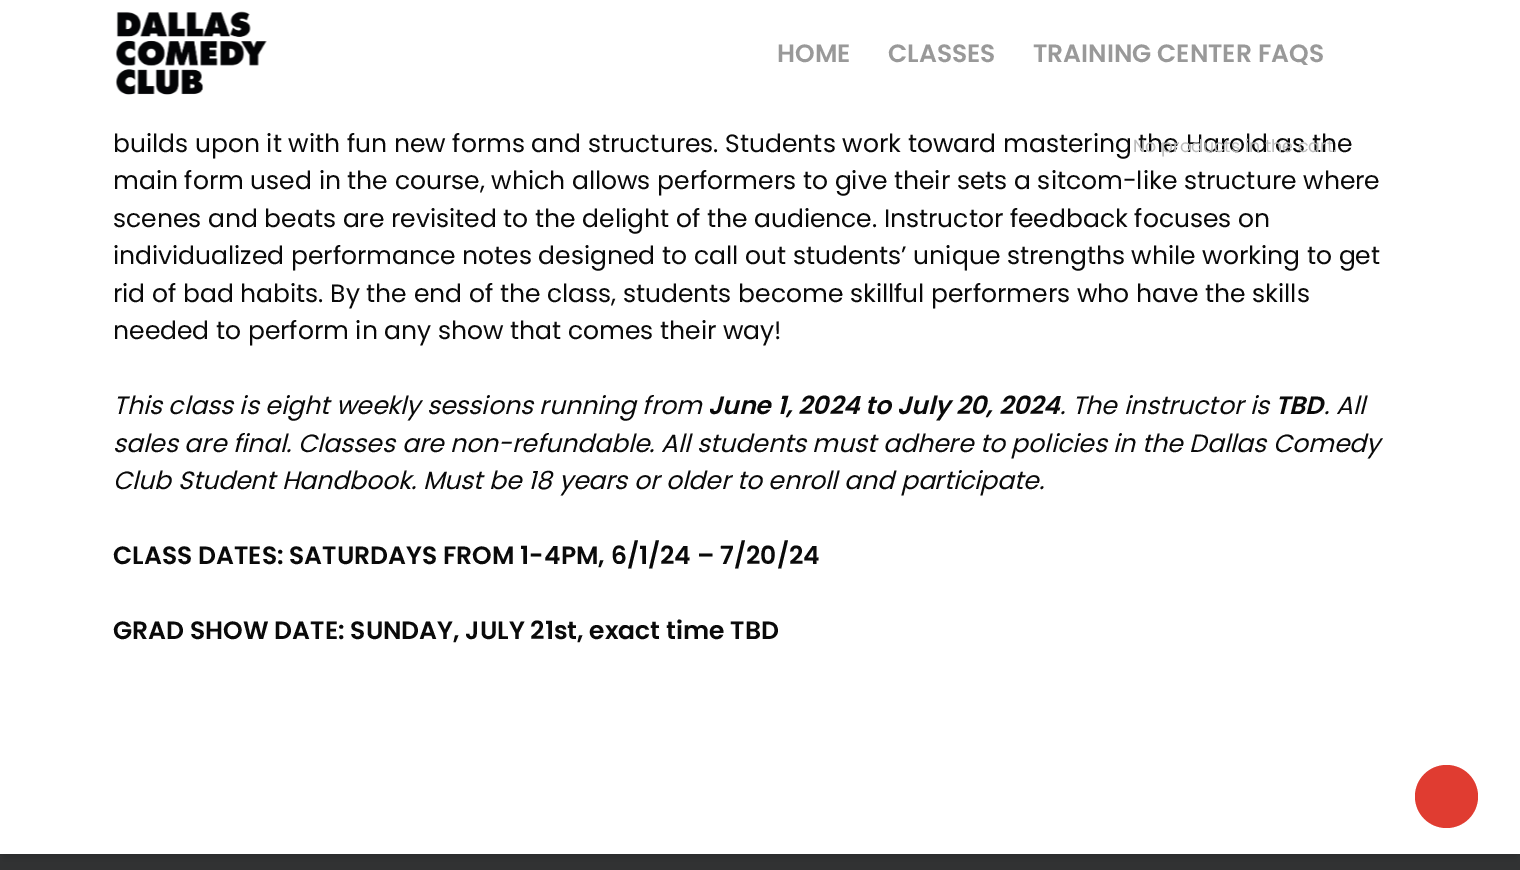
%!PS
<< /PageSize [1520 870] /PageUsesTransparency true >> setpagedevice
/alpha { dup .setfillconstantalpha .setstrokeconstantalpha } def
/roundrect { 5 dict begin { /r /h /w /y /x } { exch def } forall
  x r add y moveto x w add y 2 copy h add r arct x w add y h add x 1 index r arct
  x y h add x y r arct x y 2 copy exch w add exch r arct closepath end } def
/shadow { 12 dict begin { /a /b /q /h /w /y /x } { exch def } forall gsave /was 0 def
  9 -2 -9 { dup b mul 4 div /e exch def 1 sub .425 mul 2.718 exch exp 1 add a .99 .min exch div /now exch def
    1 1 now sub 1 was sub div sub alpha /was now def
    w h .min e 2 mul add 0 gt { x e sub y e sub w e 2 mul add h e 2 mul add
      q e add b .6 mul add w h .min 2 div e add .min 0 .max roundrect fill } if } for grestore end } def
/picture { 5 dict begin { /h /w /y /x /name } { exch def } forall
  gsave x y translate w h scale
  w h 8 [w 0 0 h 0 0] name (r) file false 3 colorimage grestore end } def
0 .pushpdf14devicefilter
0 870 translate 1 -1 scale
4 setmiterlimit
0.192 0.196 0.2 setrgbcolor
0 0 1520 870 rectfill
0 setgray
4 -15 1512 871 0 5 0.2 shadow
1 setgray
0 0 1520 854 rectfill
(img1.rgb) 115 11 152 84 picture
/Poppins-SemiBold [25 0 0 -25 0 0] selectfont
0.6 setgray
777 62 moveto (HOME) show
888 62 moveto (CLASSES) show
1033 62 moveto (TRAINING CENTER FAQS) show
/Poppins-Regular [25 0 0 -25 0 0] selectfont
0.039 setgray
113 152 moveto (builds upon it with fun new forms and structures. Students work toward mastering the Harold as the) show
/Poppins-Regular [17.5 0 0 -17.5 0 0] selectfont
0.737 setgray
1133 152 moveto (No products in the cart.) show
/Poppins-Regular [25 0 0 -25 0 0] selectfont
0.039 setgray
113 189 moveto (main form used in the course, which allows performers to give their sets a sitcom-like structure where) show
113 227 moveto (scenes and beats are revisited to the delight of the audience. Instructor feedback focuses on) show
113 264 moveto (individualized performance notes designed to call out students’ unique strengths while working to get) show
113 302 moveto (rid of bad habits. By the end of the class, students become skillful performers who have the skills) show
113 339 moveto (needed to perform in any show that comes their way!) show
/Poppins-Italic [25 0 0 -25 0 0] selectfont
113 414 moveto (This class is eight weekly sessions running from) show
/Poppins-SemiBoldItalic [25 0 0 -25 0 0] selectfont
708 414 moveto (June 1, 2024 to July 20, 2024) show
/Poppins-Italic [25 0 0 -25 0 0] selectfont
1060 414 moveto (. The instructor is) show
/Poppins-SemiBoldItalic [25 0 0 -25 0 0] selectfont
1275 414 moveto (TBD) show
/Poppins-Italic [25 0 0 -25 0 0] selectfont
1324 414 moveto (. All) show
113 452 moveto (sales are final. Classes are non-refundable. All students must adhere to policies in the Dallas Comedy) show
113 489 moveto (Club Student Handbook. Must be 18 years or older to enroll and participate.) show
/Poppins-SemiBold [25 0 0 -25 0 0] selectfont
113 564 moveto (CLASS DATES: SATURDAYS FROM 1-4PM, 6/1/24 – 7/20/24) show
113 639 moveto (GRAD SHOW DATE: SUNDAY, JULY 21st, exact time TBD) show
0.878 0.235 0.192 setrgbcolor
newpath 1446.5 796.5 31.5 0 360 arc closepath fill
.poppdf14devicefilter showpage
